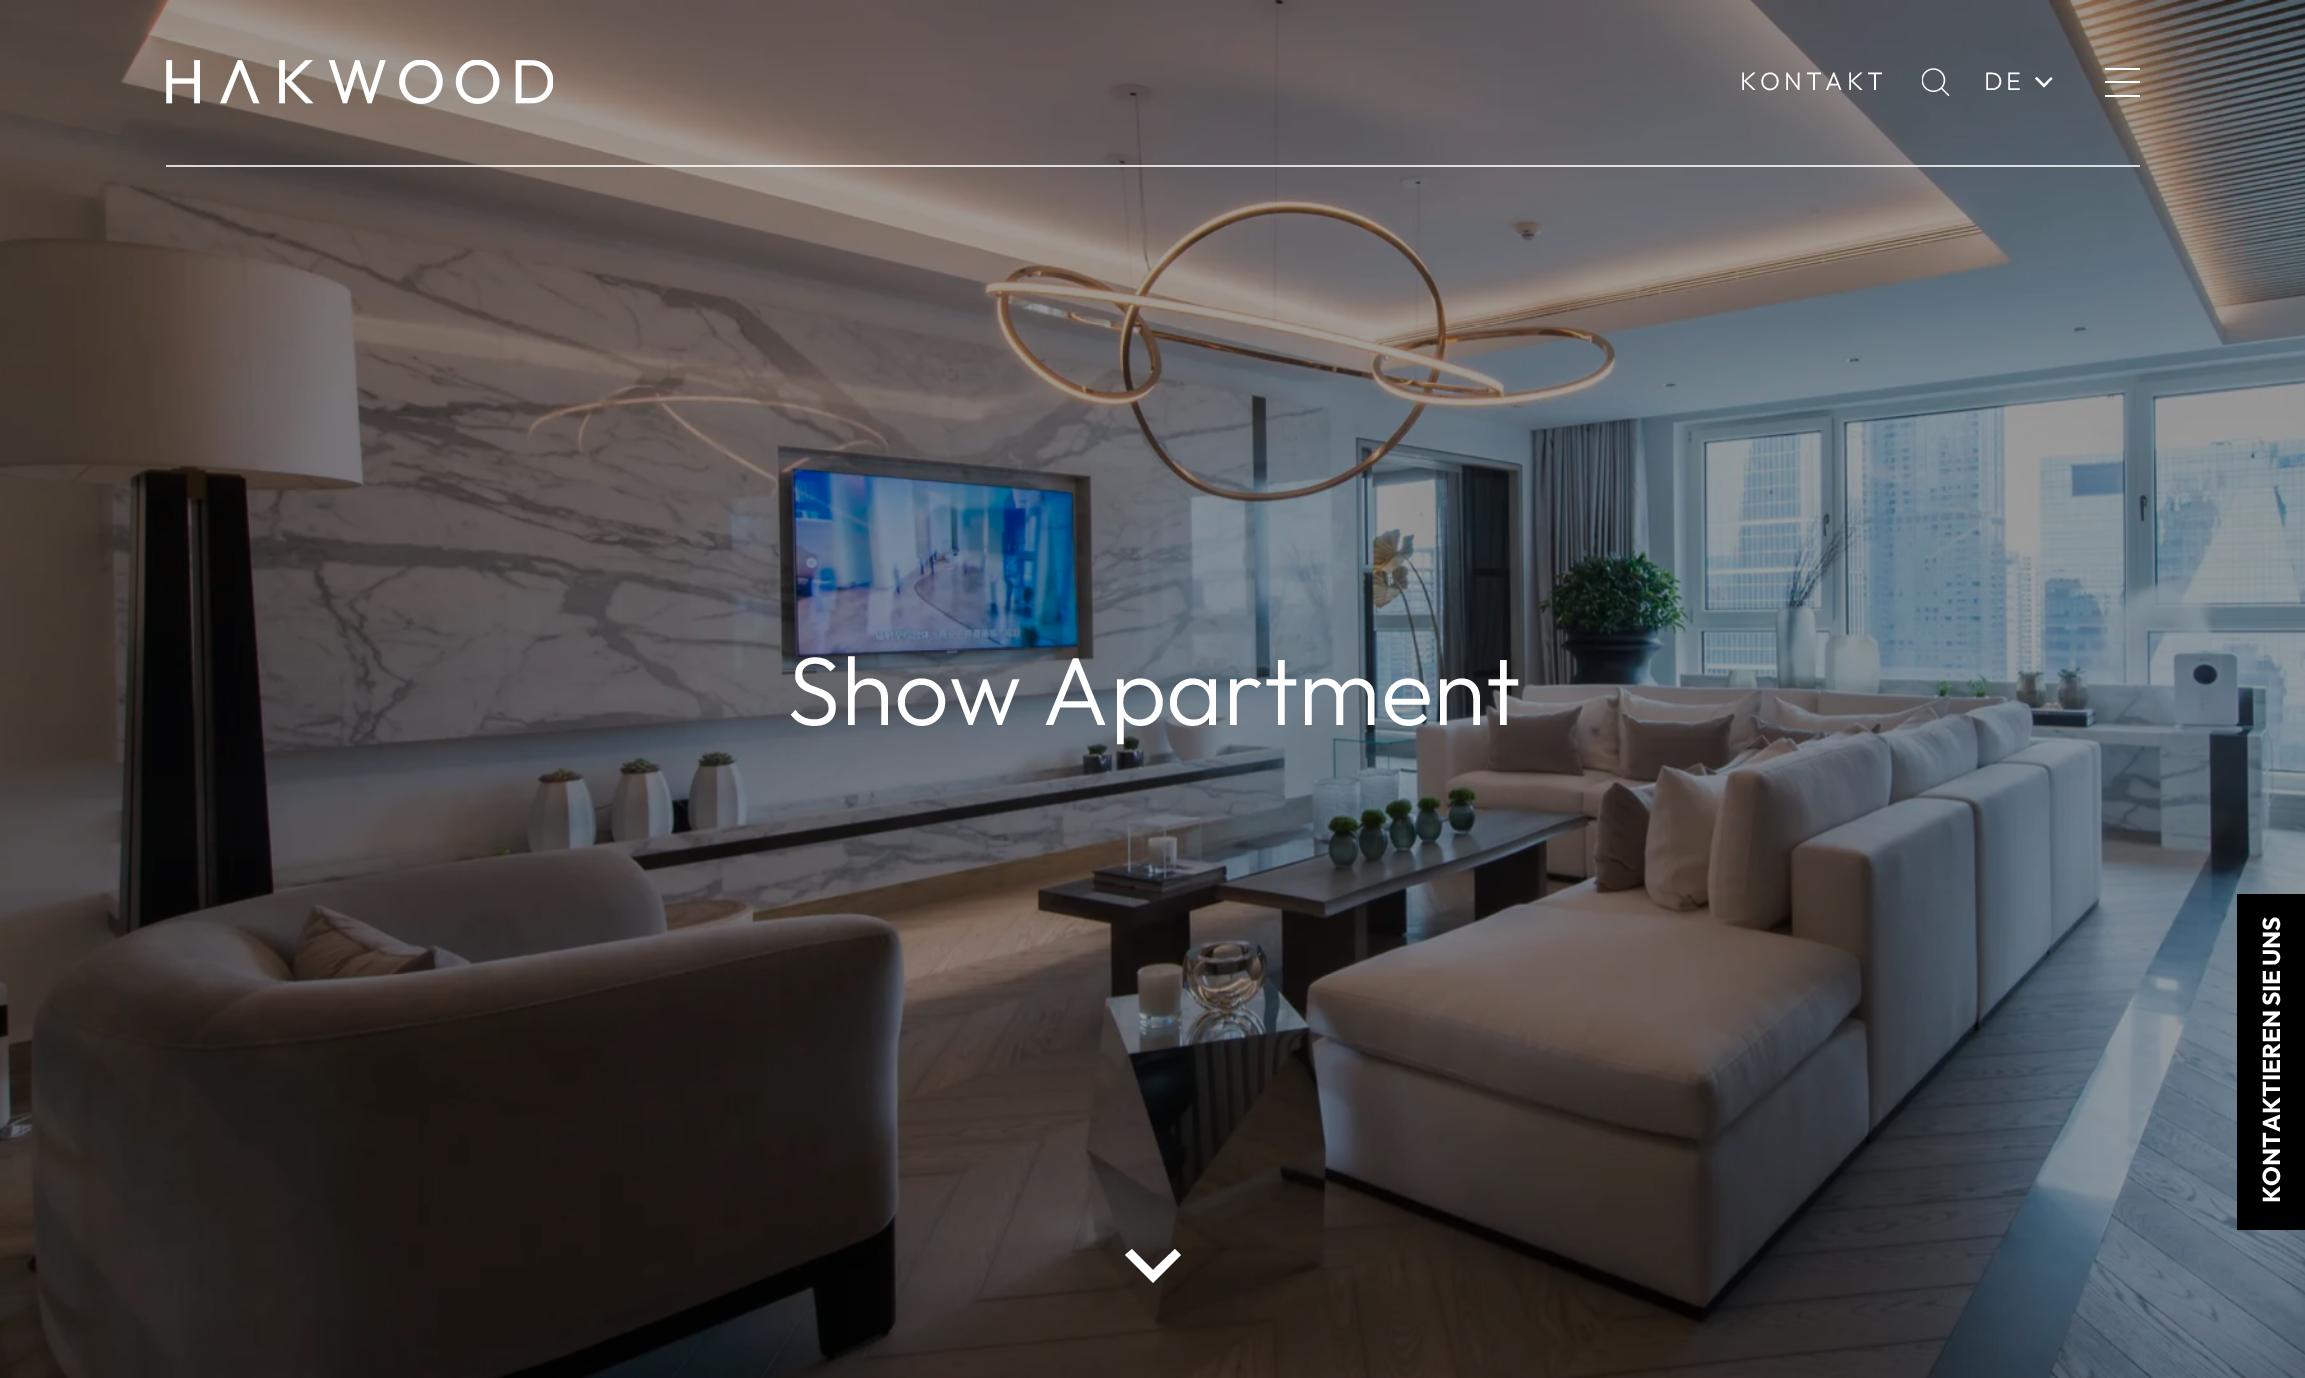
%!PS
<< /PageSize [2305 1378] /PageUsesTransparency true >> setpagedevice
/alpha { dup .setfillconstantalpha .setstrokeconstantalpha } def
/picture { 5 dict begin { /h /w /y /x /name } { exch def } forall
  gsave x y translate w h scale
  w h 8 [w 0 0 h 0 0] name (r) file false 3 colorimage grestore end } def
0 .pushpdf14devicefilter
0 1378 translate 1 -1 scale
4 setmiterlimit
1 setgray
0 0 2305 1378 rectfill
(img3.rgb) 0 0 2305 1378 picture
0.8 alpha
166 165 1974 2 rectfill
1 alpha
(img1.rgb) 166 60 387 44 picture
/Outfit-Thin [25.25 0 0 -25.25 0 0] selectfont
1740 90 moveto 3.75 0 (KONTAKT) ashow
(img2.rgb) 1922 68 28 28 picture
1984 90 moveto 3.75 0 (DE) ashow
newpath 2051 77 moveto 2052.5 78.5 lineto 2044 87.5 lineto 2035 78.5 lineto 2037 77 lineto 2044 84 lineto closepath fill
2105 68 35 2 rectfill
2105 81 35 2 rectfill
2105 95 35 2 rectfill
/Outfit-Thin [97.25 0 0 -97.25 0 0] selectfont
787 725 moveto (Show Apartment) show
newpath 1132 1249 moveto 1153 1270 lineto 1175 1249 lineto 1181 1255 lineto 1153 1283 lineto 1125 1255 lineto closepath fill
0 setgray
2237 894 68 336 rectfill
/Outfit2-Thin [24.5 0 0 -24.5 0 0] selectfont
1 setgray
gsave 2280 1203 translate -90 rotate 0 0 moveto -1 0 32 (KONTAKTIEREN SIE UNS) widthshow grestore
.poppdf14devicefilter showpage
